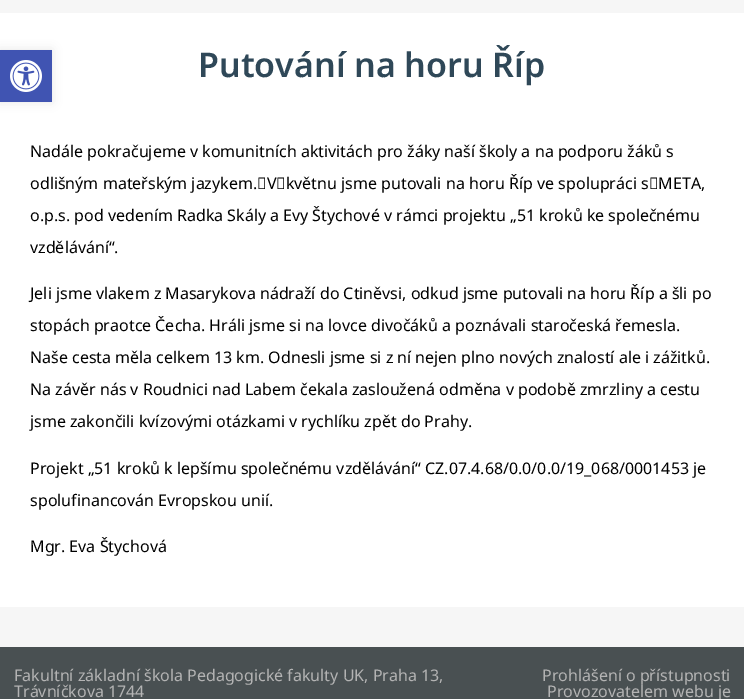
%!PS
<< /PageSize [744 699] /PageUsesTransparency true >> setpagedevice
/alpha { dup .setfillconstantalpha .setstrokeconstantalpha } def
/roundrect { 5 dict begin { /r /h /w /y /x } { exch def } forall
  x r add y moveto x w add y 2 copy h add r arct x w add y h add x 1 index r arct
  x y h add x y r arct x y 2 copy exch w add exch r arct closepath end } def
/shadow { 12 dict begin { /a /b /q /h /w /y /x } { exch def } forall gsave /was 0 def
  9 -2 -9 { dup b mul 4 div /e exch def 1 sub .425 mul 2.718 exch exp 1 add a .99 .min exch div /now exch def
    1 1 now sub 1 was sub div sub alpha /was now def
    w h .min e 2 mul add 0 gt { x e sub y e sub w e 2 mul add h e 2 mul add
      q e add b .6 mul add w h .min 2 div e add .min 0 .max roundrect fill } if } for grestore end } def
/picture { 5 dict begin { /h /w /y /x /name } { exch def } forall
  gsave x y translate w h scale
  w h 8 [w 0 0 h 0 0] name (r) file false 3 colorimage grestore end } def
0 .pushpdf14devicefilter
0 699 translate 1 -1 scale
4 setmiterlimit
0.965 setgray
0 0 744 699 rectfill
1 setgray
0 13 744 594 rectfill
0 setgray
0 50 52 52 0 5 0.1 shadow
0.251 0.329 0.698 setrgbcolor
0 50 52 52 rectfill
(img1.rgb) 10 60 32 32 picture
/NotoSans-SemiBold [34 0 0 -34 0 0] selectfont
0.184 0.282 0.345 setrgbcolor
198 77 moveto (Putování na horu Říp) show
/NotoSans-Regular [16 0 0 -16 0 0] selectfont
0 setgray
30 157 moveto (Nadále pokračujeme v komunitních aktivitách pro žáky naší školy a na podporu žáků s) show
30 189 moveto (odlišným mateřským jazykem. V květnu jsme putovali na horu Říp ve spolupráci s META,) show
30 221 moveto (o.p.s. pod vedením Radka Skály a Evy Štychové v rámci projektu „51 kroků ke společnému) show
30 253 moveto (vzdělávání“.) show
30 299 moveto (Jeli jsme vlakem z Masarykova nádraží do Ctiněvsi, odkud jsme putovali na horu Říp a šli po) show
30 331 moveto (stopách praotce Čecha. Hráli jsme si na lovce divočáků a poznávali staročeská řemesla.) show
30 363 moveto (Naše cesta měla celkem 13 km. Odnesli jsme si z ní nejen plno nových znalostí ale i zážitků.) show
30 395 moveto (Na závěr nás v Roudnici nad Labem čekala zasloužená odměna v podobě zmrzliny a cestu) show
30 427 moveto (jsme zakončili kvízovými otázkami v rychlíku zpět do Prahy.) show
30 474 moveto (Projekt „51 kroků k lepšímu společnému vzdělávání“ CZ.07.4.68/0.0/0.0/19_068/0001453 je) show
30 506 moveto (spolufinancován Evropskou unií.) show
30 552 moveto (Mgr. Eva Štychová) show
0.286 0.314 0.322 setrgbcolor
0 647 744 52 rectfill
0.702 setgray
14 681 moveto (Fakultní základní škola Pedagogické fakulty UK, Praha 13,) show
14 697 moveto (Trávníčkova 1744) show
542 681 moveto (Prohlášení o přístupnosti) show
547 697 moveto (Provozovatelem webu je) show
.poppdf14devicefilter showpage
